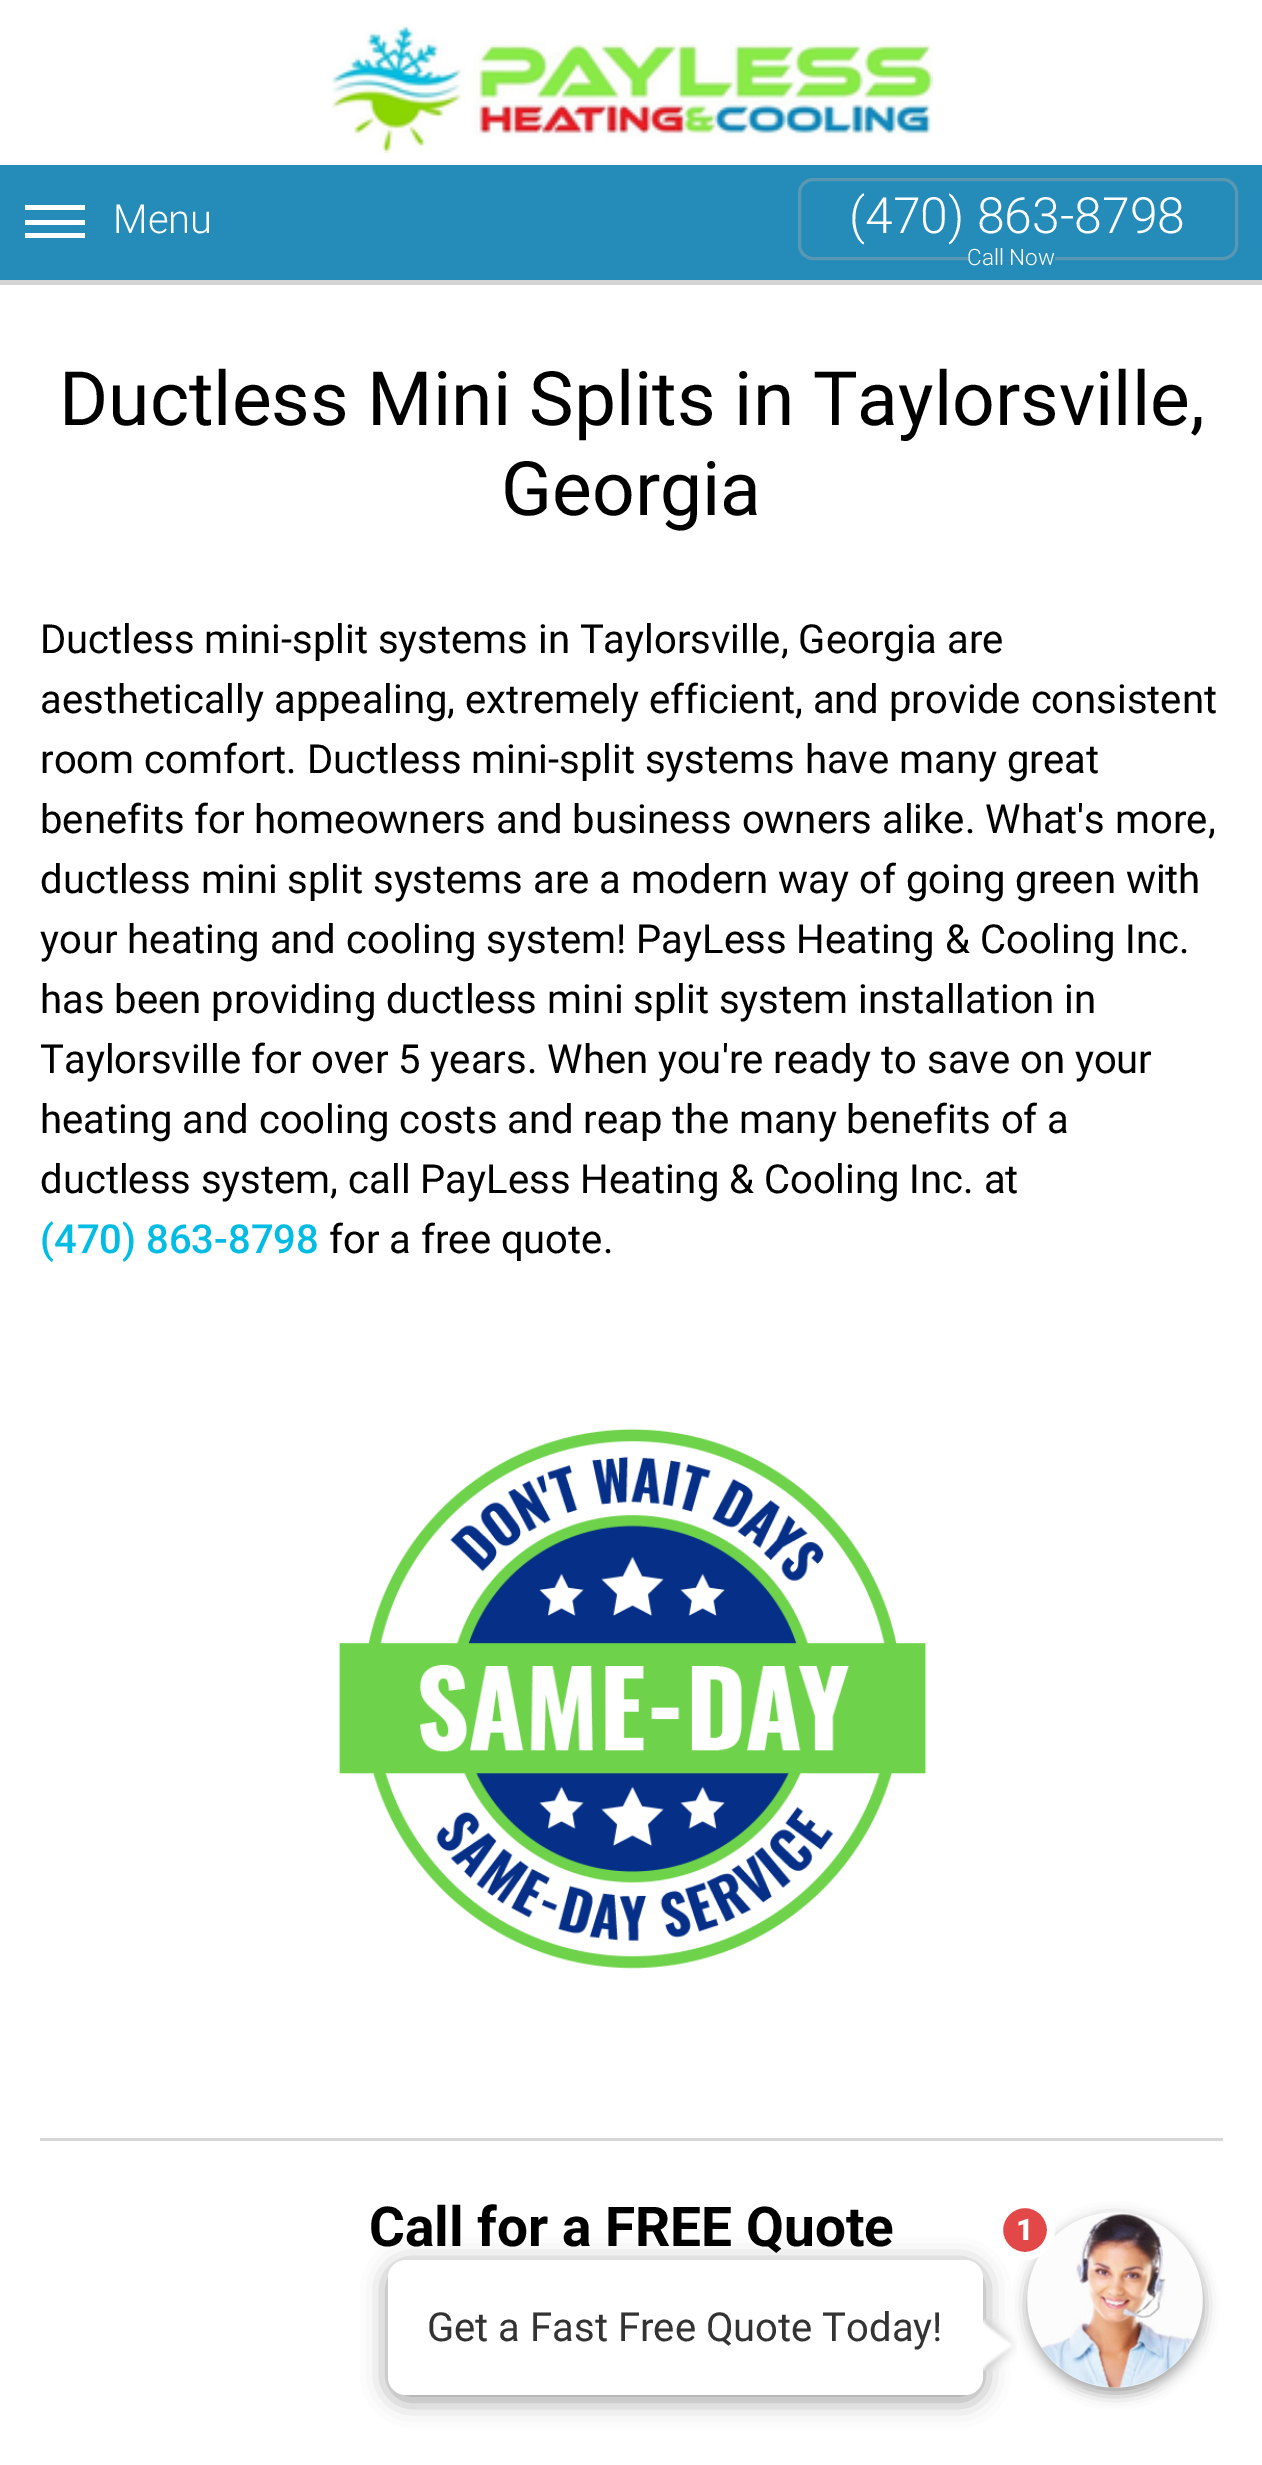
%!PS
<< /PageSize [1262 2465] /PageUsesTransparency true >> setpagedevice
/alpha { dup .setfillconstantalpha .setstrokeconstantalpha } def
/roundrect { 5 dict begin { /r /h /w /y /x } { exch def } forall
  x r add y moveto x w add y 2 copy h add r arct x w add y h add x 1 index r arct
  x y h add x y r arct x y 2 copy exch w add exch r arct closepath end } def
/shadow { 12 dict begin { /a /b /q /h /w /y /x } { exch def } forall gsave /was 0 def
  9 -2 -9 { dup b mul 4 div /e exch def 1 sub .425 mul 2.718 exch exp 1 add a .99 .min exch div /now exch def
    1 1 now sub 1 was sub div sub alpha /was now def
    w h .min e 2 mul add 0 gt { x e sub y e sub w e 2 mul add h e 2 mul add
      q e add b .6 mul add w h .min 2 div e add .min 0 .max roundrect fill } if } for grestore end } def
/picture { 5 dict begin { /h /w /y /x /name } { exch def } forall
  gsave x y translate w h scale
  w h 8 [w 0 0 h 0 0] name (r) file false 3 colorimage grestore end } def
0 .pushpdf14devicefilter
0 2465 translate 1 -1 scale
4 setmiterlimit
1 setgray
0 0 1262 2465 rectfill
0.827 setgray
newpath 0 280 moveto 0 285 lineto 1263 285 lineto 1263 5 lineto 1262 5 lineto 1262 280 lineto closepath fill
(img1.rgb) 332 25 601 128 picture
0.145 0.545 0.725 setrgbcolor
0 165 1262 115 rectfill
1 setgray
25 233 60 5 rectfill
25 220 60 5 rectfill
25 205 60 5 rectfill
/Roboto-Light [40 0 0 -40 0 0] selectfont
113 233 moveto (Menu) show
0.353 0.592 0.702 setrgbcolor
3 setlinewidth
799.5 179.5 437 79 13.5 roundrect stroke
/Roboto-Light [50 0 0 -50 0 0] selectfont
1 setgray
849 233 moveto (\(470\) 863-8798) show
0.145 0.545 0.725 setrgbcolor
968 257 87 3 rectfill
/Roboto-Light [22.5 0 0 -22.5 0 0] selectfont
1 setgray
967 265 moveto (Call Now) show
/Roboto-Regular [75 0 0 -75 0 0] selectfont
0 setgray
59 425 moveto (Ductless Mini Splits in Taylorsville,) show
501 515 moveto (Georgia) show
/Roboto-Regular [40 0 0 -40 0 0] selectfont
40 653 moveto (Ductless mini-split systems in Taylorsville, Georgia are) show
40 713 moveto (aesthetically appealing, extremely efficient, and provide consistent) show
40 773 moveto (room comfort. Ductless mini-split systems have many great) show
40 833 moveto (benefits for homeowners and business owners alike. What's more,) show
40 893 moveto (ductless mini split systems are a modern way of going green with) show
40 953 moveto (your heating and cooling system! PayLess Heating & Cooling Inc.) show
40 1013 moveto (has been providing ductless mini split system installation in) show
40 1073 moveto (Taylorsville for over 5 years. When you're ready to save on your) show
40 1133 moveto (heating and cooling costs and reap the many benefits of a) show
40 1193 moveto (ductless system, call PayLess Heating & Cooling Inc. at) show
/Roboto-Medium [40 0 0 -40 0 0] selectfont
0.008 0.737 0.89 setrgbcolor
40 1253 moveto (\(470\) 863-8798) show
/Roboto-Regular [40 0 0 -40 0 0] selectfont
0 setgray
329 1253 moveto (for a free quote.) show
(img2.rgb) 338 1428 589 541 picture
0.839 setgray
40 2138 1183 3 rectfill
/Roboto-Bold [55 0 0 -55 0 0] selectfont
0 setgray
369 2246 moveto (Call for a FREE Quote) show
1028 2218 175 175 87.5 7.5 0.4 shadow
(img3.rgb) 1027 2212 176 176 picture
388 2265 595 135 18 12.5 0.4 shadow
0.886 0.282 0.282 setrgbcolor
newpath 1025 2230 26 0 360 arc closepath gsave fill grestore
1 setgray
8 setlinewidth
stroke
/Roboto-Black [30 0 0 -30 0 0] selectfont
1016 2240 moveto (1) show
388 2260 595 135 18 roundrect fill
/Roboto-Regular [40 0 0 -40 0 0] selectfont
0.2 setgray
427 2341 moveto (Get a Fast Free Quote Today!) show
(img4.rgb) 983 2319 34 52 picture
.poppdf14devicefilter showpage
